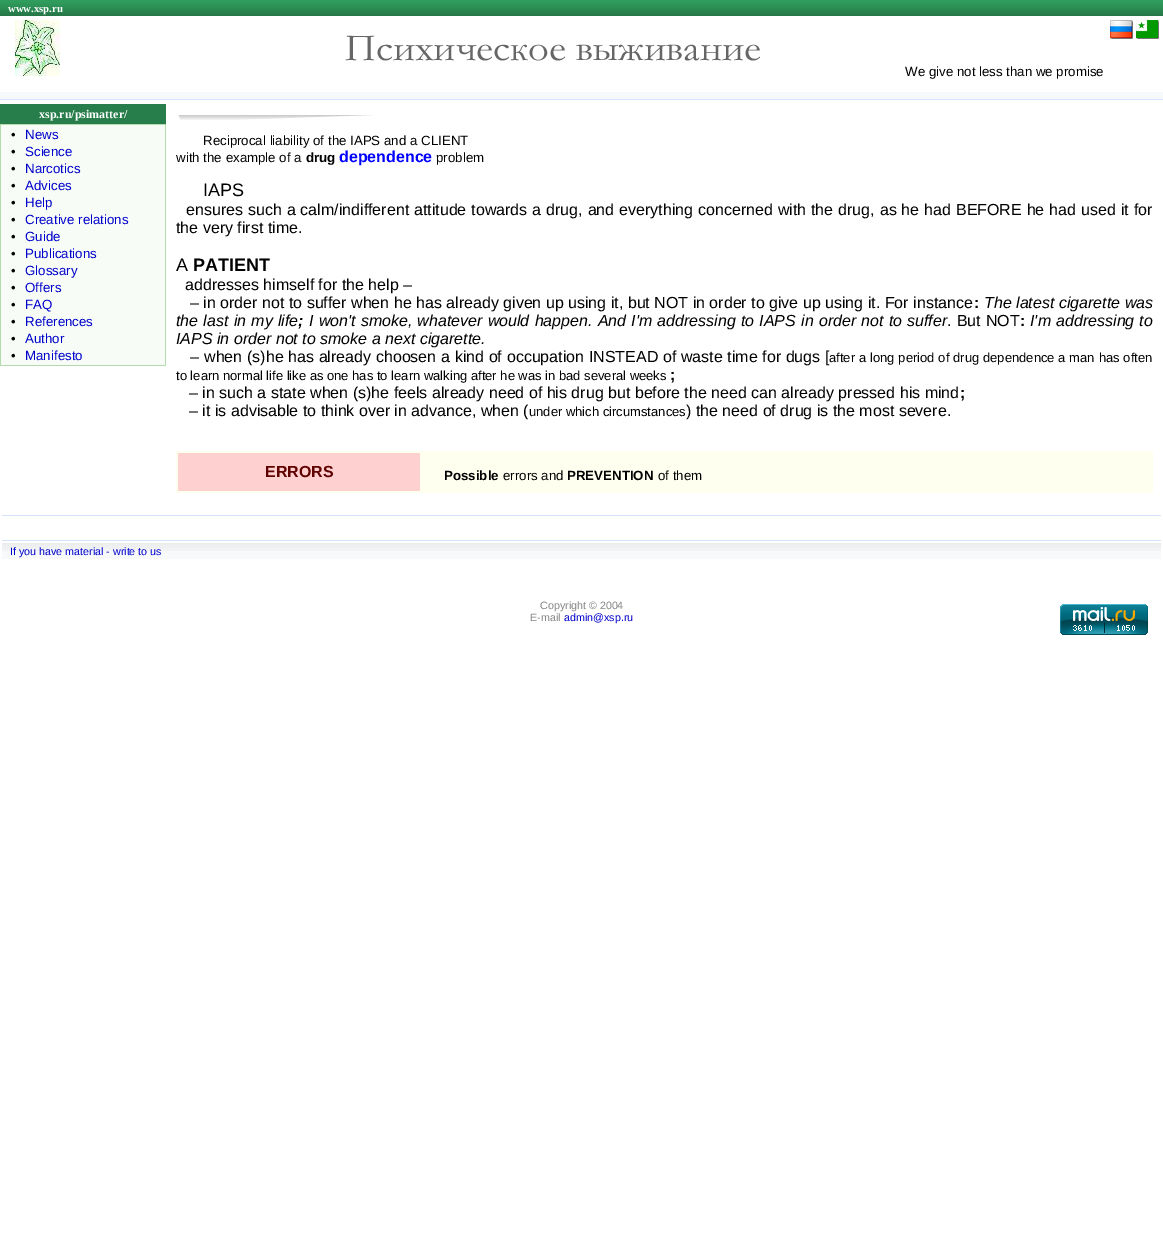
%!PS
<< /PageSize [1163 1244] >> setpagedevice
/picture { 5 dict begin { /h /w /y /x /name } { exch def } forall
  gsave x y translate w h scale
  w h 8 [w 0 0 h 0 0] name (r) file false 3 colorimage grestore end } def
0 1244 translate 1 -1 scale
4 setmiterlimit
1 setgray
0 0 1163 1244 rectfill
(img1.rgb) 0 0 1163 16 picture
/LiberationSerif-Bold [10.7 0 0 -10.7 0 0] selectfont
8 12 moveto (www.xsp.ru) show
(img2.rgb) 15 20 45 56 picture
(img3.rgb) 1110 20 23 19 picture
(img4.rgb) 1136 20 23 19 picture
(img5.rgb) 345 35 415 26 picture
/LiberationSans-Regular [13.3 0 0 -13.3 0 0] selectfont
0 setgray
905 76 moveto (We give not less than we promise) show
0.969 0.976 0.98 setrgbcolor
0 92 1163 7 rectfill
0.824 0.89 0.996 setrgbcolor
0 99 1163 1 rectfill
0.153 0.494 0.294 setrgbcolor
0 104 166 20 rectfill
/LiberationSerif-Bold [12 0 0 -12 0 0] selectfont
1 setgray
39 118 moveto (xsp.ru/psimatter/) show
0.706 0.855 0.682 setrgbcolor
0 124 166 242 rectfill
0.969 0.992 0.965 setrgbcolor
1 125 164 240 rectfill
/LiberationSans-Regular [13.3 0 0 -13.3 0 0] selectfont
0 setgray
11 139 moveto (•) show
0 0 0.8 setrgbcolor
25 139 moveto (News) show
0 setgray
11 156 moveto (•) show
0 0 0.8 setrgbcolor
25 156 moveto (Science) show
0 setgray
11 173 moveto (•) show
0 0 0.8 setrgbcolor
25 173 moveto (Narcotics) show
0 setgray
11 190 moveto (•) show
0 0 0.8 setrgbcolor
25 190 moveto (Advices) show
0 setgray
11 207 moveto (•) show
0 0 0.8 setrgbcolor
25 207 moveto (Help) show
0 setgray
11 224 moveto (•) show
0 0 0.8 setrgbcolor
25 224 moveto (Creative relations) show
0 setgray
11 241 moveto (•) show
0 0 0.8 setrgbcolor
25 241 moveto (Guide) show
0 setgray
11 258 moveto (•) show
0 0 0.8 setrgbcolor
25 258 moveto (Publications) show
0 setgray
11 275 moveto (•) show
0 0 0.8 setrgbcolor
25 275 moveto (Glossary) show
0 setgray
11 292 moveto (•) show
0 0 0.8 setrgbcolor
25 292 moveto (Offers) show
0 setgray
11 309 moveto (•) show
0 0 0.8 setrgbcolor
25 309 moveto (FAQ) show
0 setgray
11 326 moveto (•) show
0 0 0.8 setrgbcolor
25 326 moveto (References) show
0 setgray
11 343 moveto (•) show
0 0 0.8 setrgbcolor
25 343 moveto (Author) show
0 setgray
11 360 moveto (•) show
0 0 0.8 setrgbcolor
25 360 moveto (Manifesto) show
(img6.rgb) 177 115 196 5 picture
0 setgray
203 145 moveto (Reciprocal liability of the IAPS and a CLIENT) show
176 162 moveto (with the example of a) show
/LiberationSans-Bold [13.3 0 0 -13.3 0 0] selectfont
306 162 moveto (drug) show
/LiberationSans-Bold [16 0 0 -16 0 0] selectfont
0 0 1 setrgbcolor
339 162 moveto (dependence) show
/LiberationSans-Regular [13.3 0 0 -13.3 0 0] selectfont
0 setgray
436 162 moveto (problem) show
/LiberationSans-Regular [18 0 0 -18 0 0] selectfont
203 196 moveto (IAPS) show
/LiberationSans-Regular [16 0 0 -16 0 0] selectfont
186 215 moveto 0.5 0 32 (ensures such a calm/indifferent attitude towards a drug, and everything concerned with the drug, as he had BEFORE he had used it for) widthshow
176 233 moveto (the very first time.) show
/LiberationSans-Regular [18 0 0 -18 0 0] selectfont
176 271 moveto (A) show
/LiberationSans-Bold [18 0 0 -18 0 0] selectfont
193 271 moveto (PATIENT) show
/LiberationSans-Regular [16 0 0 -16 0 0] selectfont
185 290 moveto (addresses himself for the help –) show
190 308 moveto (– in order not to suffer when he has already given up using it, but NOT in order to give up using it. For instance) show
/LiberationSans-Bold [16 0 0 -16 0 0] selectfont
974 308 moveto (:) show
/LiberationSans-Italic [16 0 0 -16 0 0] selectfont
984 308 moveto (The latest cigarette was) show
176 326 moveto 0.75 0 32 (the last in my life) widthshow
/LiberationSans-BoldItalic [16 0 0 -16 0 0] selectfont
298 326 moveto (;) show
/LiberationSans-Italic [16 0 0 -16 0 0] selectfont
309 326 moveto 0.75 0 32 (I won't smoke, whatever would happen. And I'm addressing to IAPS in order not to suffer) widthshow
/LiberationSans-Regular [16 0 0 -16 0 0] selectfont
947 326 moveto 0.75 0 32 (. But NOT) widthshow
/LiberationSans-Bold [16 0 0 -16 0 0] selectfont
1020 326 moveto (:) show
/LiberationSans-Italic [16 0 0 -16 0 0] selectfont
1030 326 moveto 0.75 0 32 (I'm addressing to) widthshow
176 344 moveto (IAPS in order not to smoke a next cigarette.) show
/LiberationSans-Regular [16 0 0 -16 0 0] selectfont
190 362 moveto (–) show
204 362 moveto 0.25 0 32 (when \(s\)he has already choosen a kind of occupation INSTEAD of waste time for dugs [) widthshow
/LiberationSans-Regular [13 0 0 -13 0 0] selectfont
829 362 moveto 0.25 0 32 (after a long period of drug dependence a man has often) widthshow
176 380 moveto (to learn normal life like as one has to learn walking after he was in bad several weeks) show
/LiberationSans-Bold [16 0 0 -16 0 0] selectfont
670 380 moveto (;) show
/LiberationSans-Regular [16 0 0 -16 0 0] selectfont
189 398 moveto (– in such a state when \(s\)he feels already need of his drug but before the need can already pressed his mind) show
/LiberationSans-Bold [16 0 0 -16 0 0] selectfont
960 398 moveto (;) show
/LiberationSans-Regular [16 0 0 -16 0 0] selectfont
189 416 moveto (– it is advisable to think over in advance, when \() show
/LiberationSans-Regular [13 0 0 -13 0 0] selectfont
529 416 moveto (under which circumstances) show
/LiberationSans-Regular [16 0 0 -16 0 0] selectfont
686 416 moveto (\) the need of drug is the most severe.) show
1 1 0.941 setrgbcolor
176 451 977 42 rectfill
1 0.816 0.816 setrgbcolor
178 453 242 38 rectfill
/LiberationSans-Bold [16 0 0 -16 0 0] selectfont
0.376 0 0 setrgbcolor
265 477 moveto (ERRORS) show
/LiberationSans-Bold [13.3 0 0 -13.3 0 0] selectfont
0 setgray
444 480 moveto (Possible) show
/LiberationSans-Regular [13.3 0 0 -13.3 0 0] selectfont
503 480 moveto (errors and) show
/LiberationSans-Bold [13.3 0 0 -13.3 0 0] selectfont
567 480 moveto (PREVENTION) show
/LiberationSans-Regular [13.3 0 0 -13.3 0 0] selectfont
658 480 moveto (of them) show
0.824 0.89 0.996 setrgbcolor
2 515 1159 1 rectfill
2 540 1159 1 rectfill
0.969 0.976 0.98 setrgbcolor
2 551 1159 8 rectfill
(img7.rgb) 2 543 1159 8 picture
/LiberationSans-Regular [10.7 0 0 -10.7 0 0] selectfont
0 0 0.8 setrgbcolor
10 555 moveto (If you have material - write to us) show
0.522 setgray
540 609 moveto (Copyright © 2004) show
530 621 moveto (E-mail) show
0 0 0.8 setrgbcolor
564 621 moveto (admin@xsp.ru) show
(img8.rgb) 1060 604 88 31 picture
showpage
